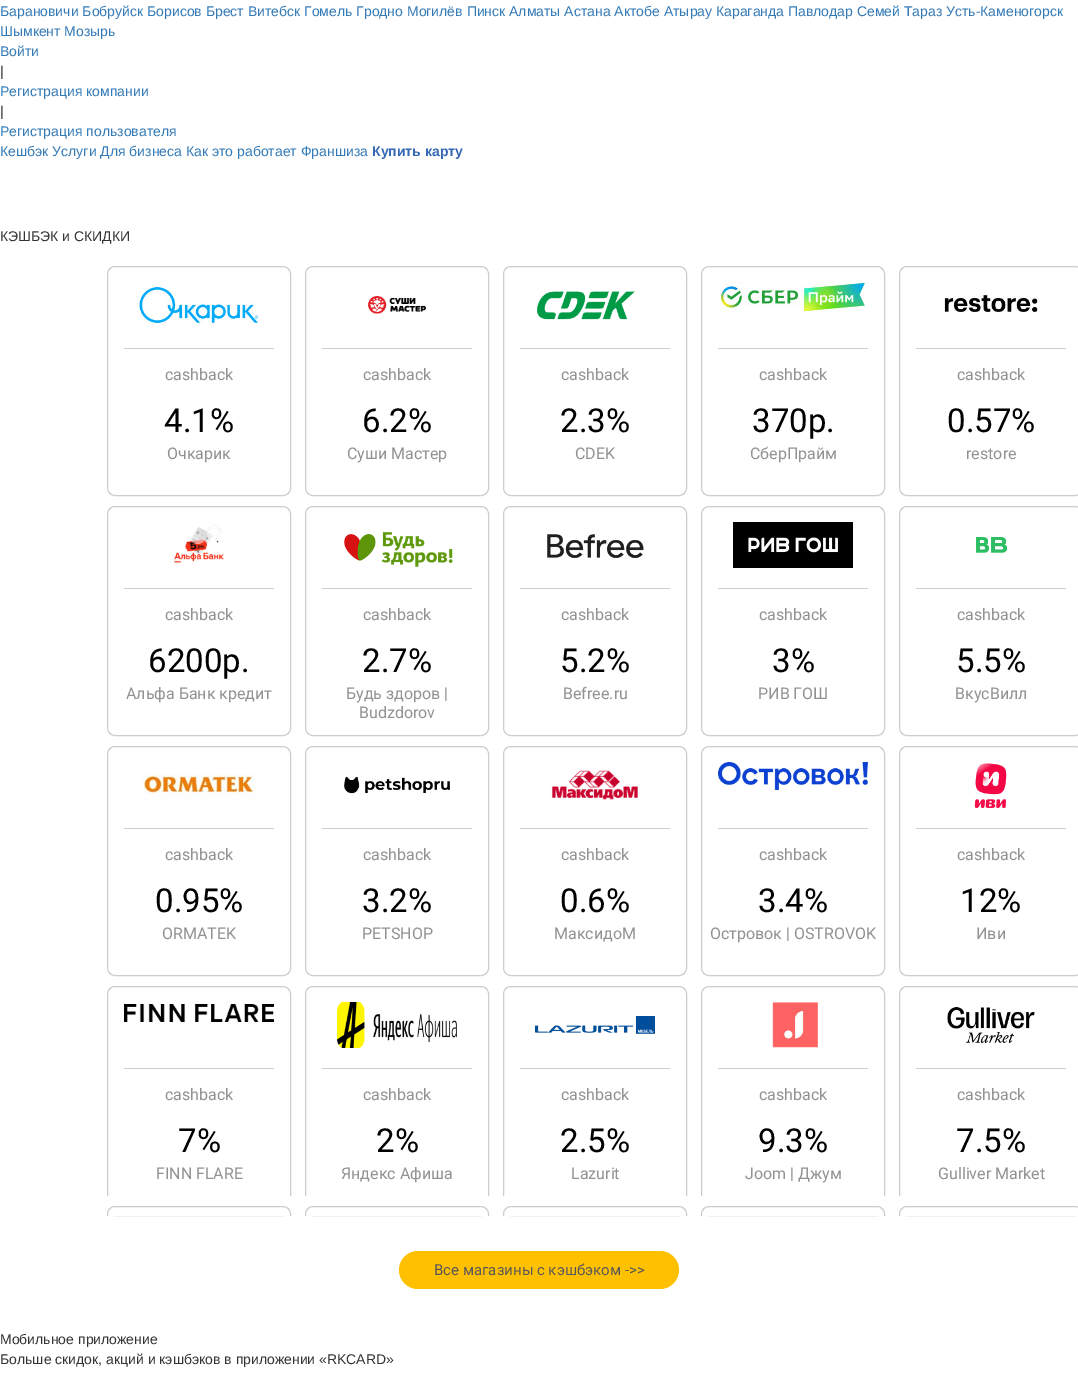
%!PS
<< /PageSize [1078 1395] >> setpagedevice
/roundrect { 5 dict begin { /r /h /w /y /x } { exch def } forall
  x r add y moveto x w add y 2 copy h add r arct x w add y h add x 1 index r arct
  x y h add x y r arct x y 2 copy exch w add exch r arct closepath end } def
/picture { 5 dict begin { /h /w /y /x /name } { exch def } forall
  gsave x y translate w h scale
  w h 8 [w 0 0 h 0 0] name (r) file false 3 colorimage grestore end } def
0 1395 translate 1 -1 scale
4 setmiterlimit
1 setgray
0 0 1078 1395 rectfill
/LiberationSans-Regular [14 0 0 -14 0 0] selectfont
0.2 0.478 0.718 setrgbcolor
0 16 moveto (Барановичи Бобруйск Борисов Брест Витебск Гомель Гродно Могилёв Пинск Алматы Астана Актобе Атырау Караганда Павлодар Семей Тараз Усть-Каменогорск) show
0 36 moveto (Шымкент Мозырь) show
0 56 moveto (Войти) show
0.2 setgray
0 76 moveto (|) show
0.2 0.478 0.718 setrgbcolor
0 96 moveto (Регистрация компании) show
0.2 setgray
0 116 moveto (|) show
0.2 0.478 0.718 setrgbcolor
0 136 moveto (Регистрация пользователя) show
0 156 moveto (Кешбэк Услуги Для бизнеса Как это работает Франшиза) show
/LiberationSans-Bold [14 0 0 -14 0 0] selectfont
0.208 0.412 0.71 setrgbcolor
372 156 moveto (Купить карту) show
/LiberationSans-Regular [14 0 0 -14 0 0] selectfont
0.2 setgray
0 241 moveto (КЭШБЭК и СКИДКИ) show
0.804 setgray
107.5 266.5 183 229 7.5 roundrect stroke
(img1.rgb) 139 287 120 36 picture
124 348 150 1 rectfill
/Roboto-Regular [16 0 0 -16 0 0] selectfont
0.573 setgray
165 380 moveto (cashback) show
/Roboto-Regular [33 0 0 -33 0 0] selectfont
0 setgray
164 432 moveto (4.1%) show
/Roboto-Regular [16 0 0 -16 0 0] selectfont
0.573 setgray
167 459 moveto (Очкарик) show
0.804 setgray
305.5 266.5 183 229 7.5 roundrect stroke
(img2.rgb) 368 296 58 18 picture
322 348 150 1 rectfill
0.573 setgray
363 380 moveto (cashback) show
/Roboto-Regular [33 0 0 -33 0 0] selectfont
0 setgray
362 432 moveto (6.2%) show
/Roboto-Regular [16 0 0 -16 0 0] selectfont
0.573 setgray
347 459 moveto (Суши Мастер) show
0.804 setgray
503.5 266.5 183 229 7.5 roundrect stroke
(img3.rgb) 536 291 99 29 picture
520 348 150 1 rectfill
0.573 setgray
561 380 moveto (cashback) show
/Roboto-Regular [33 0 0 -33 0 0] selectfont
0 setgray
560 432 moveto (2.3%) show
/Roboto-Regular [16 0 0 -16 0 0] selectfont
0.573 setgray
575 459 moveto (CDEK) show
0.804 setgray
701.5 266.5 183 229 7.5 roundrect stroke
(img4.rgb) 721 282 144 30 picture
718 348 150 1 rectfill
0.573 setgray
759 380 moveto (cashback) show
/Roboto-Regular [33 0 0 -33 0 0] selectfont
0 setgray
752 432 moveto (370р.) show
/Roboto-Regular [16 0 0 -16 0 0] selectfont
0.573 setgray
750 459 moveto (СберПрайм) show
0.804 setgray
899.5 266.5 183 229 7.5 roundrect stroke
(img5.rgb) 944 295 96 18 picture
916 348 150 1 rectfill
0.573 setgray
957 380 moveto (cashback) show
/Roboto-Regular [33 0 0 -33 0 0] selectfont
0 setgray
947 432 moveto (0.57%) show
/Roboto-Regular [16 0 0 -16 0 0] selectfont
0.573 setgray
966 459 moveto (restore) show
0.804 setgray
107.5 506.5 183 229 7.5 roundrect stroke
(img6.rgb) 174 524 50 39 picture
124 588 150 1 rectfill
0.573 setgray
165 620 moveto (cashback) show
/Roboto-Regular [33 0 0 -33 0 0] selectfont
0 setgray
148 672 moveto (6200р.) show
/Roboto-Regular [16 0 0 -16 0 0] selectfont
0.573 setgray
126 699 moveto (Альфа Банк кредит) show
0.804 setgray
305.5 506.5 183 229 7.5 roundrect stroke
(img7.rgb) 344 532 109 35 picture
322 588 150 1 rectfill
0.573 setgray
363 620 moveto (cashback) show
/Roboto-Regular [33 0 0 -33 0 0] selectfont
0 setgray
362 672 moveto (2.7%) show
/Roboto-Regular [16 0 0 -16 0 0] selectfont
0.573 setgray
346 699 moveto (Будь здоров |) show
359 718 moveto (Budzdorov) show
0.804 setgray
503.5 506.5 183 229 7.5 roundrect stroke
(img8.rgb) 547 534 97 25 picture
520 588 150 1 rectfill
0.573 setgray
561 620 moveto (cashback) show
/Roboto-Regular [33 0 0 -33 0 0] selectfont
0 setgray
560 672 moveto (5.2%) show
/Roboto-Regular [16 0 0 -16 0 0] selectfont
0.573 setgray
563 699 moveto (Befree.ru) show
0.804 setgray
701.5 506.5 183 229 7.5 roundrect stroke
(img9.rgb) 733 522 120 46 picture
718 588 150 1 rectfill
0.573 setgray
759 620 moveto (cashback) show
/Roboto-Regular [33 0 0 -33 0 0] selectfont
0 setgray
772 672 moveto (3%) show
/Roboto-Regular [16 0 0 -16 0 0] selectfont
0.573 setgray
758 699 moveto (РИВ ГОШ) show
0.804 setgray
899.5 506.5 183 229 7.5 roundrect stroke
(img10.rgb) 976 537 32 16 picture
916 588 150 1 rectfill
0.573 setgray
957 620 moveto (cashback) show
/Roboto-Regular [33 0 0 -33 0 0] selectfont
0 setgray
956 672 moveto (5.5%) show
/Roboto-Regular [16 0 0 -16 0 0] selectfont
0.573 setgray
955 699 moveto (ВкусВилл) show
0.804 setgray
107.5 746.5 183 229 7.5 roundrect stroke
(img11.rgb) 143 774 112 26 picture
124 828 150 1 rectfill
0.573 setgray
165 860 moveto (cashback) show
/Roboto-Regular [33 0 0 -33 0 0] selectfont
0 setgray
155 912 moveto (0.95%) show
/Roboto-Regular [16 0 0 -16 0 0] selectfont
0.573 setgray
162 939 moveto (ORMATEK) show
0.804 setgray
305.5 746.5 183 229 7.5 roundrect stroke
(img12.rgb) 344 776 107 18 picture
322 828 150 1 rectfill
0.573 setgray
363 860 moveto (cashback) show
/Roboto-Regular [33 0 0 -33 0 0] selectfont
0 setgray
362 912 moveto (3.2%) show
/Roboto-Regular [16 0 0 -16 0 0] selectfont
0.573 setgray
362 939 moveto (PETSHOP) show
0.804 setgray
503.5 746.5 183 229 7.5 roundrect stroke
(img13.rgb) 551 770 87 30 picture
520 828 150 1 rectfill
0.573 setgray
561 860 moveto (cashback) show
/Roboto-Regular [33 0 0 -33 0 0] selectfont
0 setgray
560 912 moveto (0.6%) show
/Roboto-Regular [16 0 0 -16 0 0] selectfont
0.573 setgray
554 939 moveto (МаксидоМ) show
0.804 setgray
701.5 746.5 183 229 7.5 roundrect stroke
(img14.rgb) 718 762 150 28 picture
718 828 150 1 rectfill
0.573 setgray
759 860 moveto (cashback) show
/Roboto-Regular [33 0 0 -33 0 0] selectfont
0 setgray
758 912 moveto (3.4%) show
/Roboto-Regular [16 0 0 -16 0 0] selectfont
0.573 setgray
710 939 moveto (Островок | OSTROVOK) show
0.804 setgray
899.5 746.5 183 229 7.5 roundrect stroke
(img15.rgb) 974 763 33 45 picture
916 828 150 1 rectfill
0.573 setgray
957 860 moveto (cashback) show
/Roboto-Regular [33 0 0 -33 0 0] selectfont
0 setgray
960 912 moveto (12%) show
/Roboto-Regular [16 0 0 -16 0 0] selectfont
0.573 setgray
976 939 moveto (Иви) show
0.804 setgray
107.5 986.5 183 229 7.5 roundrect stroke
(img16.rgb) 124 1004 150 18 picture
124 1068 150 1 rectfill
0.573 setgray
165 1100 moveto (cashback) show
/Roboto-Regular [33 0 0 -33 0 0] selectfont
0 setgray
178 1152 moveto (7%) show
/Roboto-Regular [16 0 0 -16 0 0] selectfont
0.573 setgray
156 1179 moveto (FINN FLARE) show
0.804 setgray
305.5 986.5 183 229 7.5 roundrect stroke
(img17.rgb) 337 1002 120 46 picture
322 1068 150 1 rectfill
0.573 setgray
363 1100 moveto (cashback) show
/Roboto-Regular [33 0 0 -33 0 0] selectfont
0 setgray
376 1152 moveto (2%) show
/Roboto-Regular [16 0 0 -16 0 0] selectfont
0.573 setgray
341 1179 moveto (Яндекс Афиша) show
0.804 setgray
503.5 986.5 183 229 7.5 roundrect stroke
(img18.rgb) 535 1016 120 18 picture
520 1068 150 1 rectfill
0.573 setgray
561 1100 moveto (cashback) show
/Roboto-Regular [33 0 0 -33 0 0] selectfont
0 setgray
560 1152 moveto (2.5%) show
/Roboto-Regular [16 0 0 -16 0 0] selectfont
0.573 setgray
571 1179 moveto (Lazurit) show
0.804 setgray
701.5 986.5 183 229 7.5 roundrect stroke
(img19.rgb) 772 1002 46 46 picture
718 1068 150 1 rectfill
0.573 setgray
759 1100 moveto (cashback) show
/Roboto-Regular [33 0 0 -33 0 0] selectfont
0 setgray
758 1152 moveto (9.3%) show
/Roboto-Regular [16 0 0 -16 0 0] selectfont
0.573 setgray
745 1179 moveto (Joom | Джум) show
0.804 setgray
899.5 986.5 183 229 7.5 roundrect stroke
(img20.rgb) 947 1007 88 36 picture
916 1068 150 1 rectfill
0.573 setgray
957 1100 moveto (cashback) show
/Roboto-Regular [33 0 0 -33 0 0] selectfont
0 setgray
956 1152 moveto (7.5%) show
/Roboto-Regular [16 0 0 -16 0 0] selectfont
0.573 setgray
938 1179 moveto (Gulliver Market) show
1 setgray
107 1196 971 20 rectfill
/LiberationSans-Regular [14 0 0 -14 0 0] selectfont
0.2 setgray
0 1344 moveto (Мобильное приложение) show
0 1364 moveto (Больше скидок, акций и кэшбэков в приложении «RKCARD») show
gsave
0 256 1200 960 rectclip
0.804 setgray
107.5 1206.5 183 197 7.5 roundrect stroke
grestore
1 0.753 0 setrgbcolor
399 1251 280 38 19 roundrect fill
/Roboto-Regular [15 0 0 -15 0 0] selectfont
0.345 setgray
434 1275 moveto (Все магазины с кэшбэком ->>) show
gsave
0 256 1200 960 rectclip
0.804 setgray
305.5 1206.5 183 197 7.5 roundrect stroke
503.5 1206.5 183 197 7.5 roundrect stroke
701.5 1206.5 183 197 7.5 roundrect stroke
899.5 1206.5 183 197 7.5 roundrect stroke
grestore
showpage
